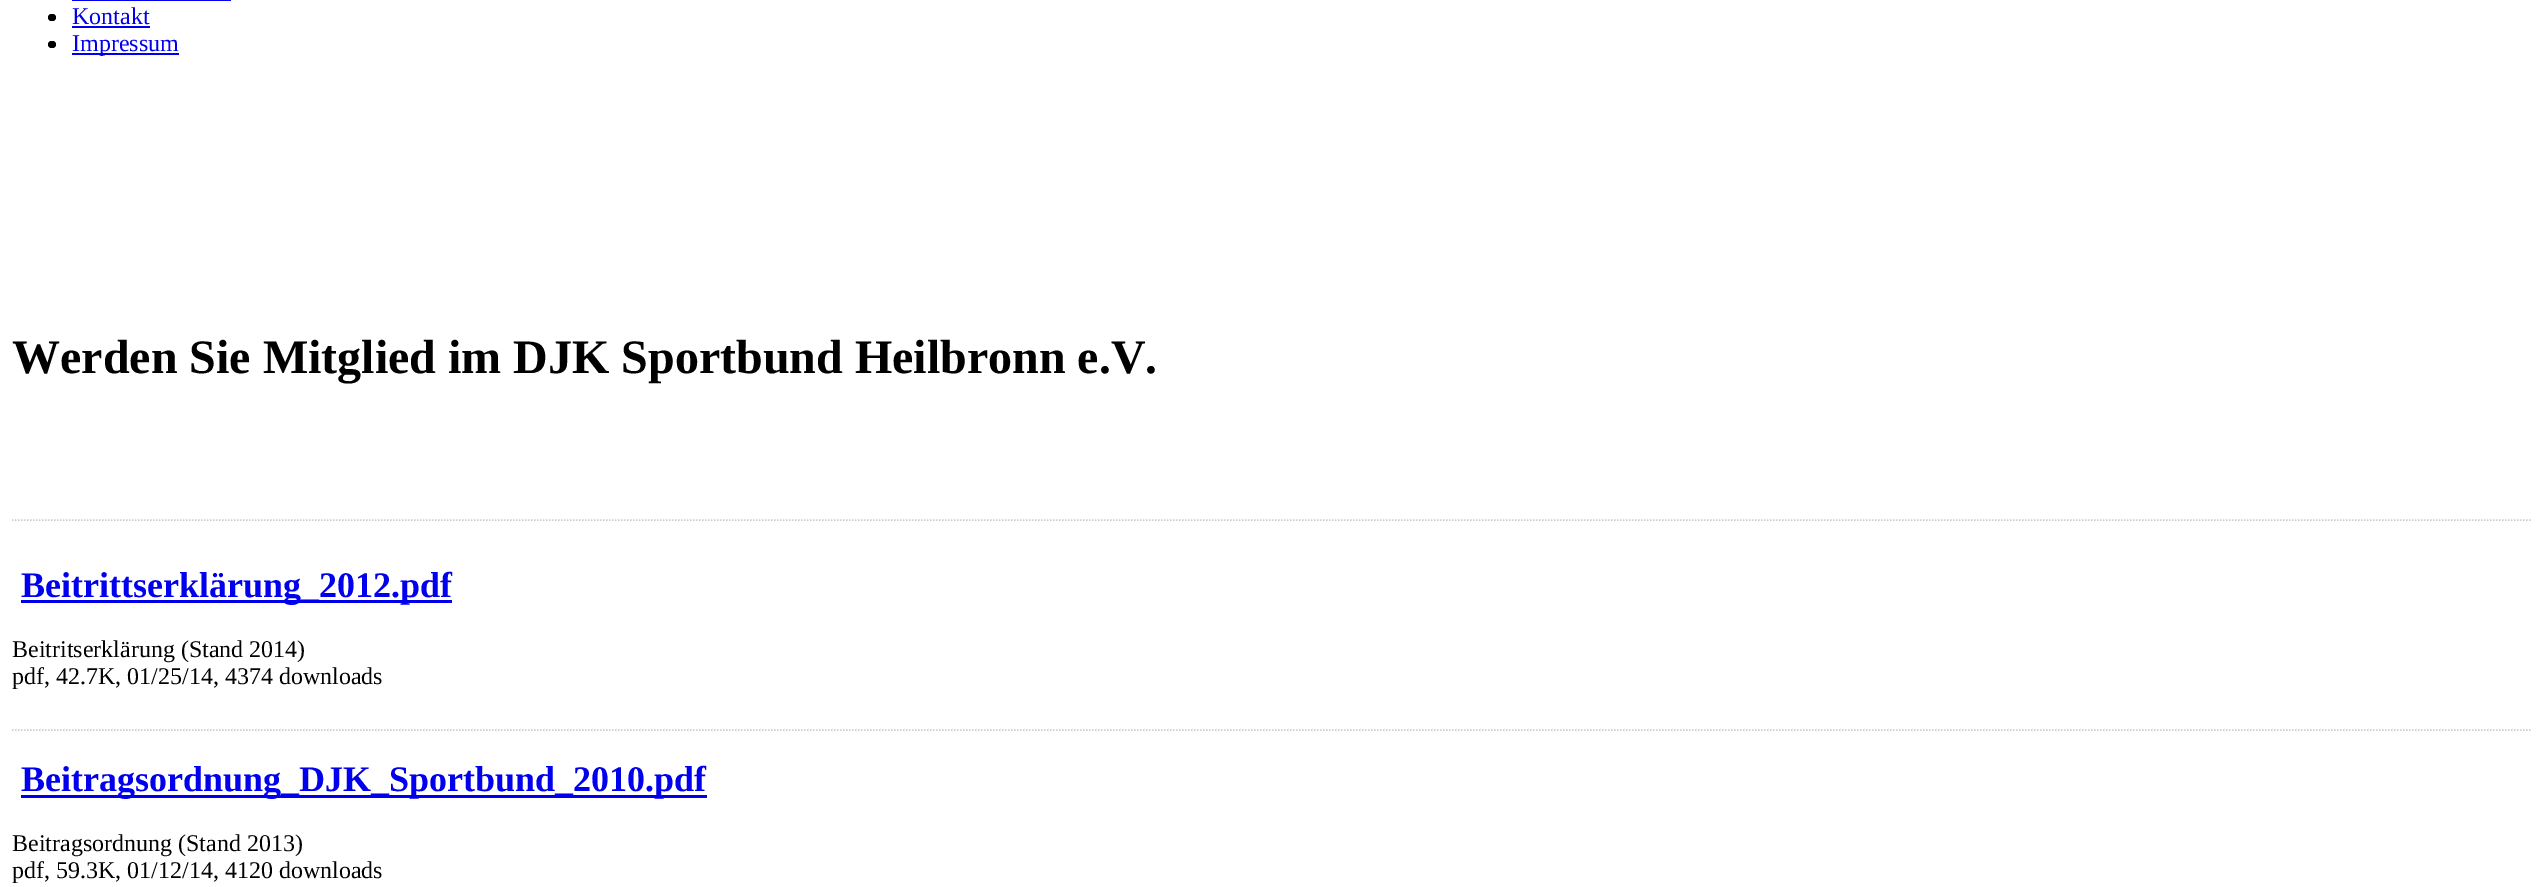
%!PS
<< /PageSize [2543 887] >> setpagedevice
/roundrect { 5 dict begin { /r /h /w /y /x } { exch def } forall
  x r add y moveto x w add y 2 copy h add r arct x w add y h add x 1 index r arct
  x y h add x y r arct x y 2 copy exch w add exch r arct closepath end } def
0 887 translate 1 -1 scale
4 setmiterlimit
1 setgray
0 0 2543 887 rectfill
0 0 0.933 setrgbcolor
72 0 159 1 rectfill
0 setgray
48 14 8 7 3.5 roundrect fill
/LiberationSerif-Regular [24 0 0 -24 0 0] selectfont
0 0 0.933 setrgbcolor
72 24 moveto (Kontakt) show
72 26 78 2 rectfill
0 setgray
48 41 8 7 3.5 roundrect fill
0 0 0.933 setrgbcolor
72 53 107 2 rectfill
72 51 moveto (Impressum) show
/LiberationSerif-Bold [48 0 0 -48 0 0] selectfont
0 setgray
12 373 moveto (Werden Sie Mitglied im DJK Sportbund Heilbronn e.V.) show
0.8 setgray
1.5 setlinewidth
[1.5 1.5] 0 setdash
newpath 12 520 moveto 2532 520 lineto stroke
newpath 12 730 moveto 2532 730 lineto stroke
0 0 0.933 setrgbcolor
21 600 431 3 rectfill
/LiberationSerif-Bold [36 0 0 -36 0 0] selectfont
21 597 moveto (Beitrittserklärung_2012.pdf) show
/LiberationSerif-Regular [24 0 0 -24 0 0] selectfont
0 setgray
12 657 moveto (Beitritserklärung \(Stand 2014\)) show
12 684 moveto (pdf, 42.7K, 01/25/14, 4374 downloads) show
0 0 0.933 setrgbcolor
21 795 686 3 rectfill
/LiberationSerif-Bold [36 0 0 -36 0 0] selectfont
21 791 moveto (Beitragsordnung_DJK_Sportbund_2010.pdf) show
/LiberationSerif-Regular [24 0 0 -24 0 0] selectfont
0 setgray
12 851 moveto (Beitragsordnung \(Stand 2013\)) show
12 878 moveto (pdf, 59.3K, 01/12/14, 4120 downloads) show
showpage
